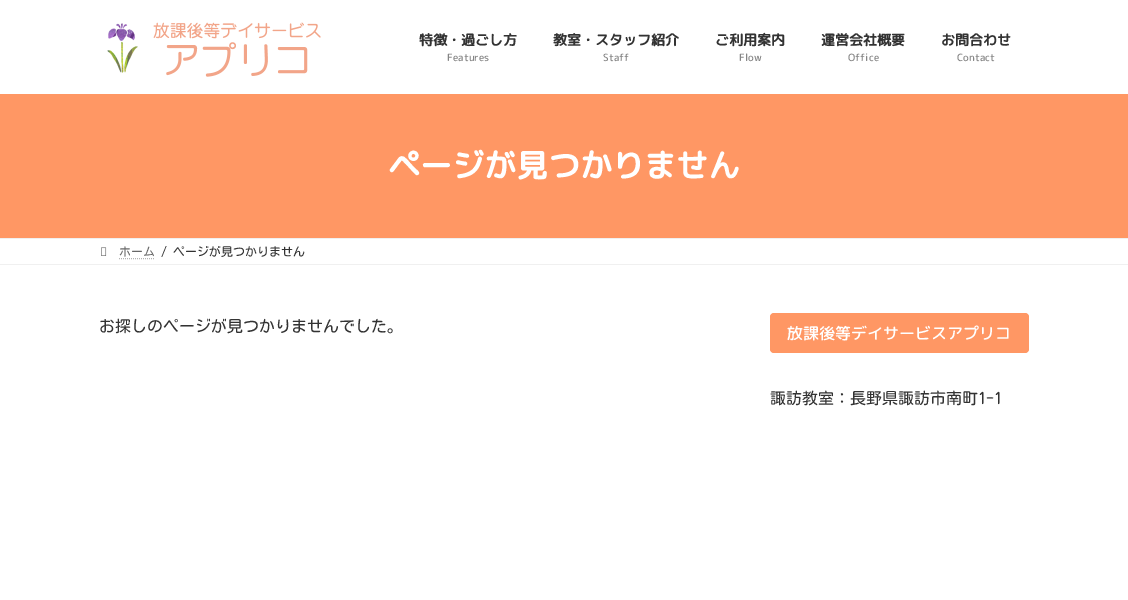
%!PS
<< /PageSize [1128 600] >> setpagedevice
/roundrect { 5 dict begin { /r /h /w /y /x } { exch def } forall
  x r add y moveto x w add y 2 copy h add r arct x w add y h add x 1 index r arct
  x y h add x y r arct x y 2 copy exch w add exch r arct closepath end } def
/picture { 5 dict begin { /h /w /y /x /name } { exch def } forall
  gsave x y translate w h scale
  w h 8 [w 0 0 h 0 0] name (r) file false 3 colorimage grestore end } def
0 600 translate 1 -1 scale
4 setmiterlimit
1 setgray
0 0 1128 600 rectfill
(img1.rgb) 107 22 214 55 picture
/RoundedMplus1c-Bold [14 0 0 -14 0 0] selectfont
0.2 setgray
419 45 moveto (特徴・過ごし方) show
/RoundedMplus1c-Medium [10 0 0 -10 0 0] selectfont
0.522 setgray
447 61 moveto (Features) show
/RoundedMplus1c-Bold [14 0 0 -14 0 0] selectfont
0.2 setgray
553 45 moveto (教室・スタッフ紹介) show
/RoundedMplus1c-Medium [10 0 0 -10 0 0] selectfont
0.522 setgray
603 61 moveto (Staff) show
/RoundedMplus1c-Bold [14 0 0 -14 0 0] selectfont
0.2 setgray
715 45 moveto (ご利用案内) show
/RoundedMplus1c-Medium [10 0 0 -10 0 0] selectfont
0.522 setgray
739 61 moveto (Flow) show
/RoundedMplus1c-Bold [14 0 0 -14 0 0] selectfont
0.2 setgray
821 45 moveto (運営会社概要) show
/RoundedMplus1c-Medium [10 0 0 -10 0 0] selectfont
0.522 setgray
848 61 moveto (Office) show
/RoundedMplus1c-Bold [14 0 0 -14 0 0] selectfont
0.2 setgray
941 45 moveto (お問合わせ) show
/RoundedMplus1c-Medium [10 0 0 -10 0 0] selectfont
0.522 setgray
957 61 moveto (Contact) show
1 0.592 0.392 setrgbcolor
0 94 1128 144 rectfill
/RoundedMplus1c-Bold [32 0 0 -32 0 0] selectfont
1 setgray
388 177 moveto (ページが見つかりません) show
0.941 setgray
0 238 1128 1 rectfill
0 264 1128 1 rectfill
(img2.rgb) 101 247 6 9 picture
/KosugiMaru-Regular [12 0 0 -12 0 0] selectfont
0.4 setgray
119 256 moveto (ホーム) show
0.702 setgray
[1 1] 0 setdash
newpath 119 258.5 moveto 155 258.5 lineto stroke
0.2 setgray
161 256 moveto (/ ページが見つかりません) show
/KosugiMaru-Regular [16 0 0 -16 0 0] selectfont
99 332 moveto (お探しのページが見つかりませんでした。) show
1 0.592 0.392 setrgbcolor
770 313 259 40 4 roundrect fill
/RoundedMplus1c-Medium [16 0 0 -16 0 0] selectfont
1 setgray
787 339 moveto (放課後等デイサービスアプリコ) show
/KosugiMaru-Regular [16 0 0 -16 0 0] selectfont
0.2 setgray
770 404 moveto (諏訪教室：長野県諏訪市南町1-1) show
showpage
